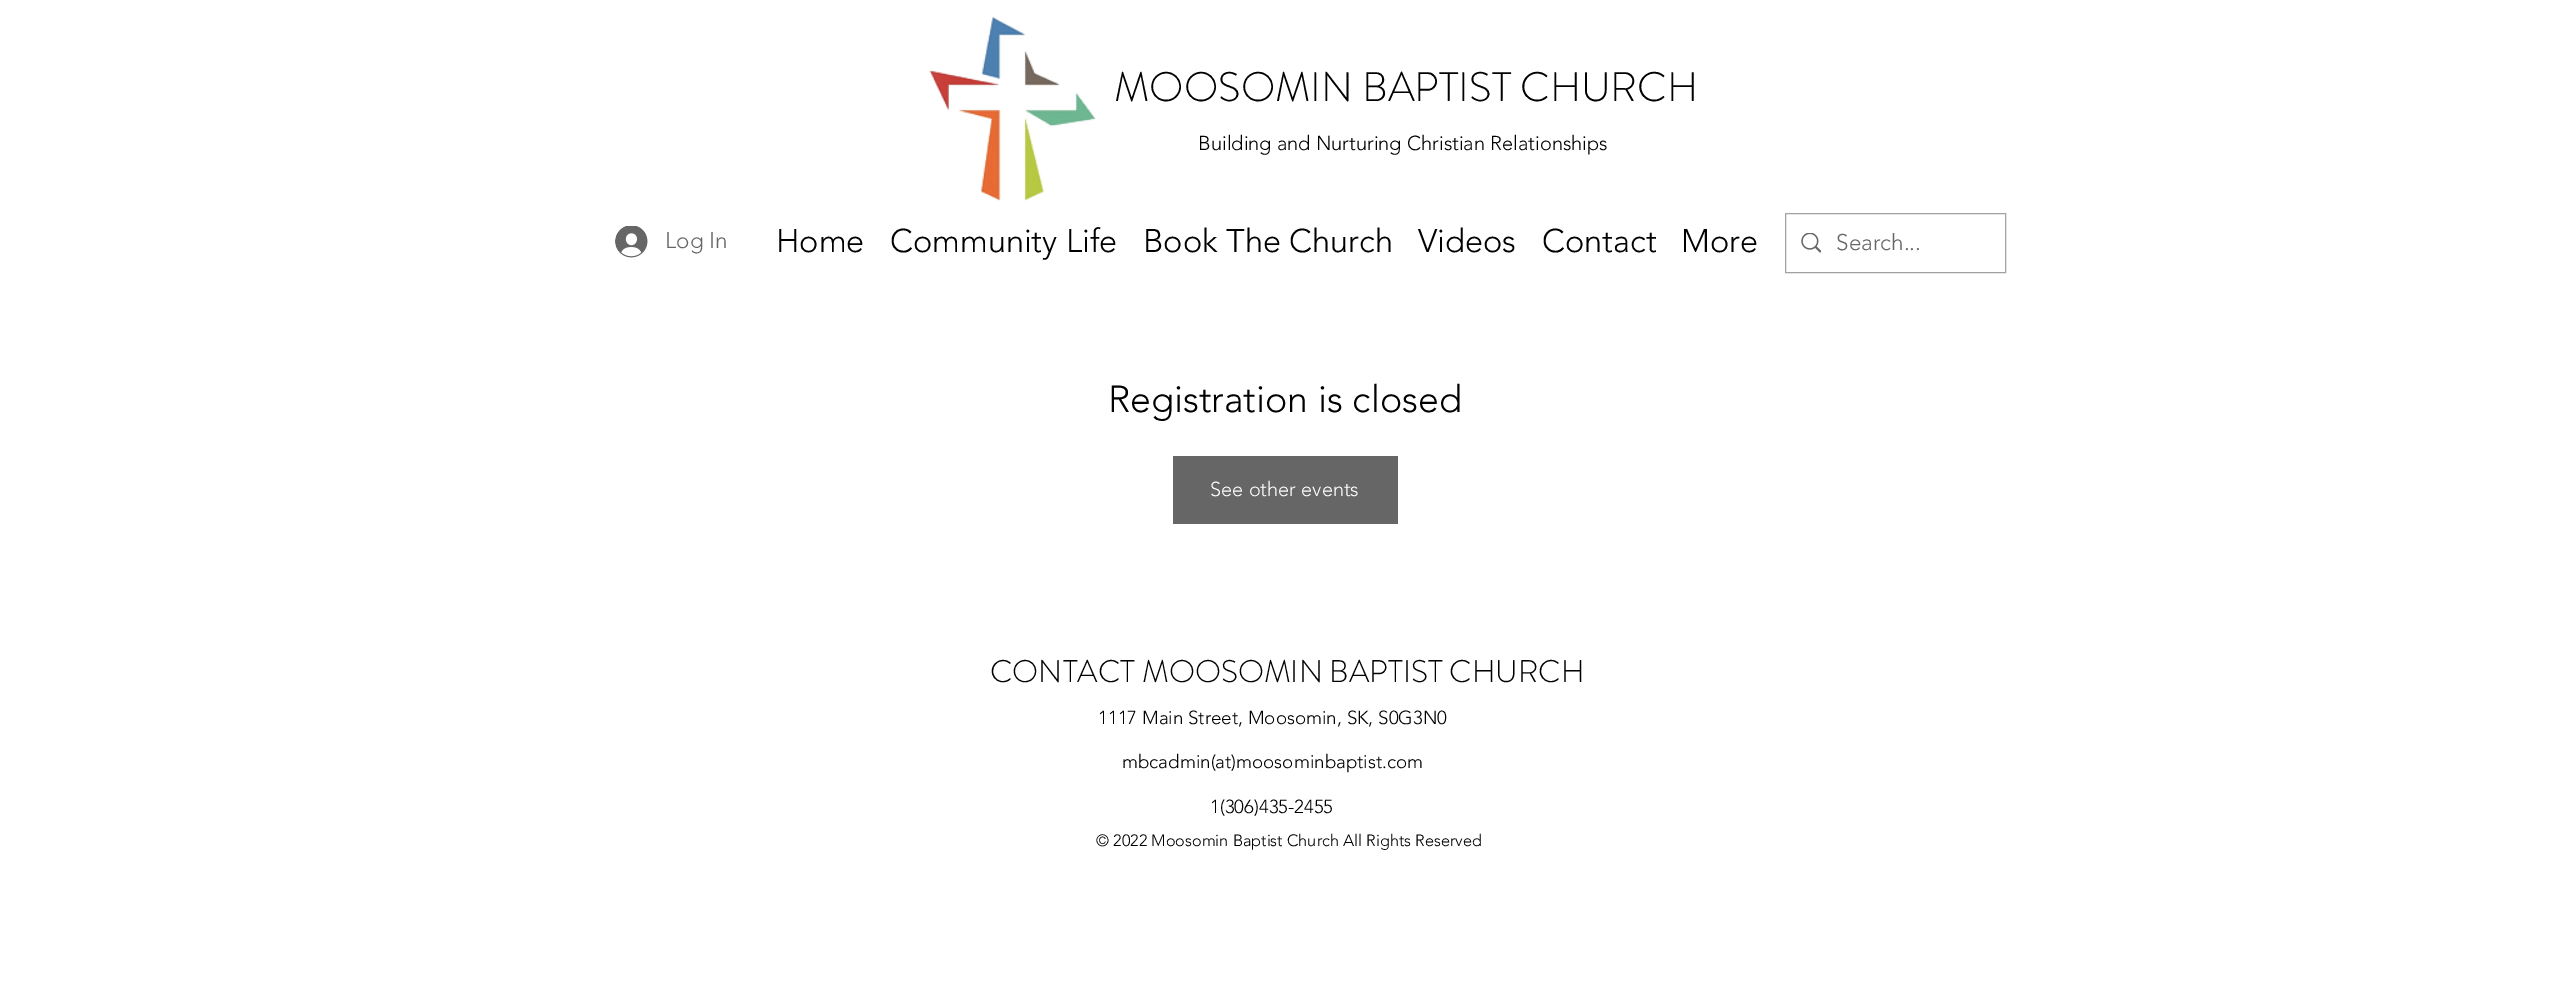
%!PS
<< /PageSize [2569 989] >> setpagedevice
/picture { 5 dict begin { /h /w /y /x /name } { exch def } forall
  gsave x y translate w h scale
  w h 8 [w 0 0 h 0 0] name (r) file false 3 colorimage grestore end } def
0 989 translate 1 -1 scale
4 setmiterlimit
1 setgray
0 0 2569 989 rectfill
(img1.rgb) 929 17 167 184 picture
/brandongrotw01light-Light [41.25 0 0 -41.25 0 0] selectfont
0 setgray
1114 101 moveto (MOOSOMIN BAPTIST CHURCH) show
/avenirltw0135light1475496-Light [20 0 0 -20 0 0] selectfont
1198 150 moveto (Building and Nurturing Christian Relationships) show
(img2.rgb) 615 226 33 32 picture
/avenirltw0135light1475496-Light [22.5 0 0 -22.5 0 0] selectfont
0.4 setgray
665 248 moveto (Log In) show
/avenirltw0135light1475496-Light [32.5 0 0 -32.5 0 0] selectfont
0 setgray
776 252 moveto (Home) show
890 252 moveto (Community Life) show
1143 252 moveto (Book The Church) show
1418 252 moveto (Videos) show
1542 252 moveto (Contact) show
1681 252 moveto (More) show
0.635 setgray
1785.5 213.5 220 59 rectstroke
(img3.rgb) 1801 233 20 20 picture
/avenirltw0135light1475496-Light [22.5 0 0 -22.5 0 0] selectfont
0.4 setgray
1836 250 moveto (Search...) show
/avenirltw0135light1475496-Light [37.5 0 0 -37.5 0 0] selectfont
0 setgray
1108 412 moveto (Registration is closed) show
0.4 setgray
1173 456 225 68 rectfill
/avenirltw0135light1475496-Light [20 0 0 -20 0 0] selectfont
1 setgray
1210 496 moveto (See other events) show
/brandongrotw01light-Light [31.25 0 0 -31.25 0 0] selectfont
0 setgray
990 682 moveto (CONTACT MOOSOMIN BAPTIST CHURCH) show
/avenirltw0135light1475496-Light [18.75 0 0 -18.75 0 0] selectfont
1098 724 moveto (1117 Main Street, Moosomin, SK, S0G3N0) show
1122 768 moveto (mbcadmin\(at\)moosominbaptist.com) show
1210 813 moveto (1\(306\)435-2455) show
/avenirltw0135light1475496-Light [16.25 0 0 -16.25 0 0] selectfont
1096 846 moveto (© 2022 Moosomin Baptist Church All Rights Reserved) show
showpage
